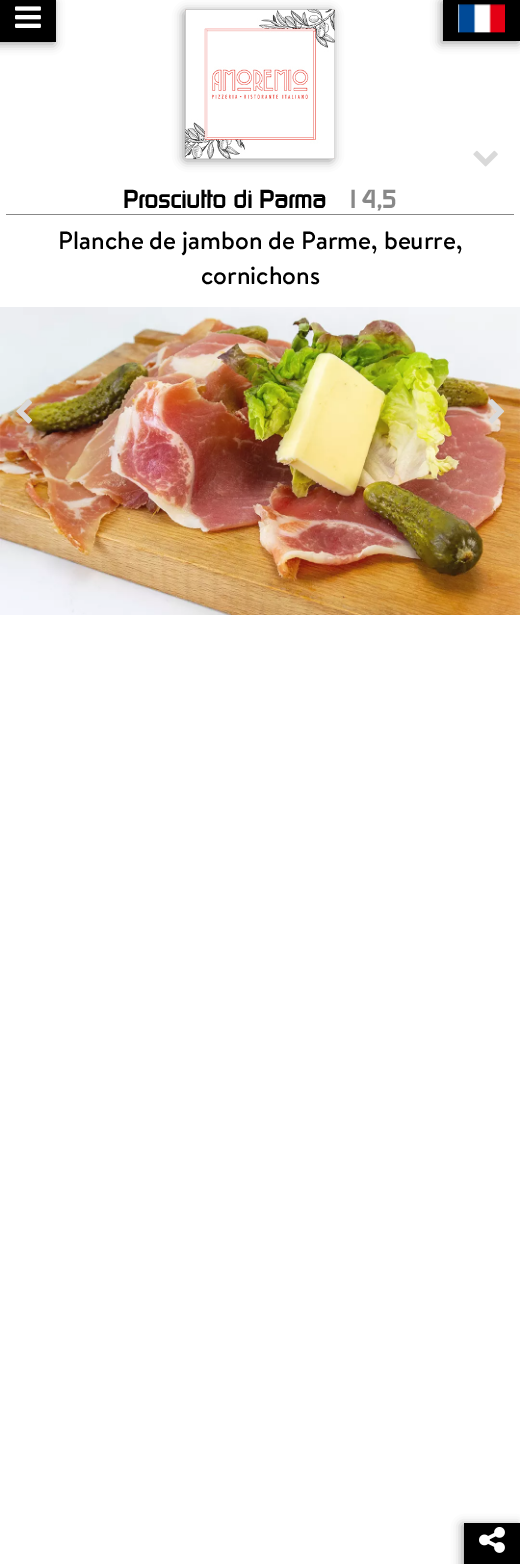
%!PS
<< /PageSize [520 1564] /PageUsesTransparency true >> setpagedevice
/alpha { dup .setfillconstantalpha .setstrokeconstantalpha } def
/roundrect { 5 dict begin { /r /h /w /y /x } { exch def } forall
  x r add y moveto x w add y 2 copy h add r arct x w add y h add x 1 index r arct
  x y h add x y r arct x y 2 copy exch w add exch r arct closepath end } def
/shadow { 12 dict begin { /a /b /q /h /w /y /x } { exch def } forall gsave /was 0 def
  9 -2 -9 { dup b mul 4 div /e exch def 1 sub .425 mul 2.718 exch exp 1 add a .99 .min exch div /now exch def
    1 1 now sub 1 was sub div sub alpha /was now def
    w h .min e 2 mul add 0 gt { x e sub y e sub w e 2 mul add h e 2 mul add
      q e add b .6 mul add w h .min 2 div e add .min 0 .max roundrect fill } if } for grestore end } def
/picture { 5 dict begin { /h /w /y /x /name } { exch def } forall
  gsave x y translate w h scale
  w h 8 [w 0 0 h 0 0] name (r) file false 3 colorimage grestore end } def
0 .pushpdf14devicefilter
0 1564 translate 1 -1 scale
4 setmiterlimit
1 setgray
0 0 520 1564 rectfill
0.533 setgray
-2 2 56 42 0 5 0.8 shadow
0 setgray
0 0 56 42 rectfill
(img1.rgb) 15 6 26 22 picture
0.533 setgray
441 2 77 41 0 5 0.8 shadow
0 setgray
443 0 77 41 rectfill
(img2.rgb) 458 4 47 29 picture
0.533 setgray
462 1525 56 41 0 5 0.8 shadow
0 setgray
464 1523 56 41 rectfill
(img3.rgb) 479 1527 26 26 picture
0.533 setgray
183 11 150 150 3 5 0.8 shadow
(img4.rgb) 185 9 150 150 picture
(img5.rgb) 473 150 25 17 picture
6 214 508 1 rectfill
/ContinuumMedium-Bold [25 0 0 -25 0 0] selectfont
0 setgray
123 208 moveto (Prosciutto di Parma) show
0.533 setgray
345 208 moveto (14,5) show
/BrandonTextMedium-Medium [25 0 0 -25 0 0] selectfont
0 setgray
58 249 moveto (Planche de jambon de Parme, beurre,) show
201 284 moveto (cornichons) show
(img8.rgb) 0 307 520 308 picture
(img6.rgb) 16 399 16 25 picture
(img7.rgb) 488 399 17 25 picture
.poppdf14devicefilter showpage
